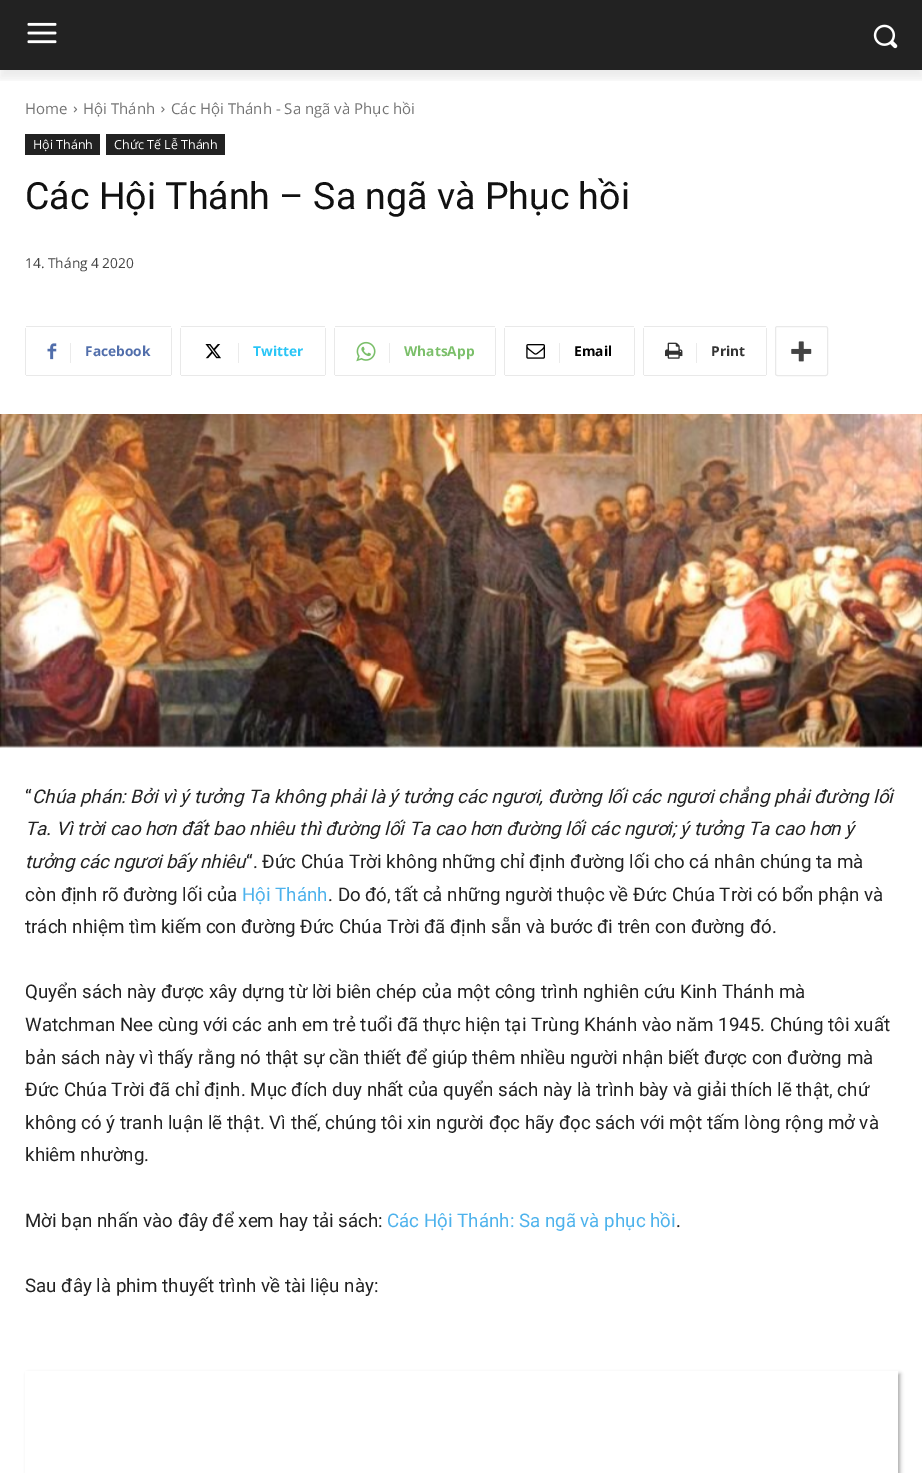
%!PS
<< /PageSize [922 1473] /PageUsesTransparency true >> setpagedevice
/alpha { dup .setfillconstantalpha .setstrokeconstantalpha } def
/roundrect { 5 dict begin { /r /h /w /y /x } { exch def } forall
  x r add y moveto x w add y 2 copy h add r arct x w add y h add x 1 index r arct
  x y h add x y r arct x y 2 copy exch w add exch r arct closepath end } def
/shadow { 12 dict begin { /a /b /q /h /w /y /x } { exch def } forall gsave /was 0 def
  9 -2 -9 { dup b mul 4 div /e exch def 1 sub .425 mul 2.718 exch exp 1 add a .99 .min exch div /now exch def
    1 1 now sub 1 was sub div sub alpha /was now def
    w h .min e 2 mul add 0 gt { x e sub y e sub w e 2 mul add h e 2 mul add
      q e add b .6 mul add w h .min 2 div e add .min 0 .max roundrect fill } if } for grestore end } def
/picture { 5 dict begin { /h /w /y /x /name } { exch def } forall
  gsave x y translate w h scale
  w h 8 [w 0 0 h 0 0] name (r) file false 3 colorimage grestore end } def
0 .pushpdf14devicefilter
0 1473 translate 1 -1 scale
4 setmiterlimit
1 setgray
0 0 922 1473 rectfill
0.133 setgray
0 0 922 70 rectfill
(img1.rgb) 27 22 30 22 picture
(img2.rgb) 873 24 25 25 picture
gsave
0 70 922 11 rectclip
0 setgray
0 8 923 70 0 5 0.08 shadow
grestore
/OpenSans-Regular [15 0 0 -15 0 0] selectfont
0.455 setgray
25 114 moveto (Home) show
(img3.rgb) 73 106 5 7 picture
83 114 moveto (Hội Thánh) show
(img4.rgb) 161 106 4 7 picture
171 114 moveto (Các Hội Thánh - Sa ngã và Phục hồi) show
0.133 setgray
25 134 75 21 rectfill
/OpenSans-Regular [12.5 0 0 -12.5 0 0] selectfont
1 setgray
33 149 moveto (Hội Thánh) show
0.133 setgray
106 134 119 21 rectfill
1 setgray
114 149 moveto (Chức Tế Lễ Thánh) show
/Roboto-Regular [37.5 0 0 -37.5 0 0] selectfont
0.067 setgray
25 209 moveto (Các Hội Thánh – Sa ngã và Phục hồi) show
/OpenSans-Regular [13.75 0 0 -13.75 0 0] selectfont
0.267 setgray
25 268 moveto (14. Tháng 4 2020) show
0.914 setgray
25 328 1 47 rectfill
(img5.rgb) 47 343 10 17 picture
26 326 145 1 rectfill
171 328 1 47 rectfill
26 375 145 1 rectfill
0.922 setgray
70 343 1 20 rectfill
/OpenSans-Bold [13.75 0 0 -13.75 0 0] selectfont
0.318 0.431 0.671 setrgbcolor
85 356 moveto (Facebook) show
0.914 setgray
180 328 1 47 rectfill
(img6.rgb) 205 344 16 15 picture
181 326 144 1 rectfill
325 328 1 47 rectfill
181 375 144 1 rectfill
0.922 setgray
238 343 1 20 rectfill
0.161 0.773 0.965 setrgbcolor
253 356 moveto (Twitter) show
0.914 setgray
334 328 1 47 rectfill
(img7.rgb) 356 341 20 21 picture
335 326 160 1 rectfill
495 328 1 47 rectfill
335 375 160 1 rectfill
0.922 setgray
389 343 1 20 rectfill
0.482 0.749 0.416 setrgbcolor
404 356 moveto (WhatsApp) show
0.914 setgray
504 328 1 47 rectfill
(img8.rgb) 526 344 19 15 picture
505 326 129 1 rectfill
634 328 1 47 rectfill
505 375 129 1 rectfill
0.922 setgray
559 343 1 20 rectfill
0 setgray
574 356 moveto (Email) show
0.914 setgray
643 328 1 47 rectfill
(img9.rgb) 665 342 18 17 picture
644 326 122 1 rectfill
766 328 1 47 rectfill
644 375 122 1 rectfill
0.922 setgray
696 343 1 20 rectfill
0.2 setgray
711 356 moveto (Print) show
0.914 setgray
775.5 326.5 52 49 2 roundrect stroke
(img10.rgb) 791 341 21 21 picture
(img11.rgb) 0 414 922 334 picture
/Roboto-Regular [18.75 0 0 -18.75 0 0] selectfont
0.133 setgray
25 803 moveto (“) show
/Roboto-Italic [18.75 0 0 -18.75 0 0] selectfont
32 803 moveto (Chúa phán: Bởi vì ý tưởng Ta không phải là ý tưởng các ngươi, đường lối các ngươi chẳng phải đường lối) show
25 835 moveto (Ta. Vì trời cao hơn đất bao nhiêu thì đường lối Ta cao hơn đường lối các ngươi; ý tưởng Ta cao hơn ý) show
25 868 moveto (tưởng các ngươi bấy nhiêu) show
/Roboto-Regular [18.75 0 0 -18.75 0 0] selectfont
246 868 moveto (“. Đức Chúa Trời không những chỉ định đường lối cho cá nhân chúng ta mà) show
25 901 moveto (còn định rõ đường lối của) show
0.302 0.698 0.925 setrgbcolor
242 901 moveto (Hội Thánh) show
0.133 setgray
328 901 moveto (. Do đó, tất cả những người thuộc về Đức Chúa Trời có bổn phận và) show
25 933 moveto (trách nhiệm tìm kiếm con đường Đức Chúa Trời đã định sẵn và bước đi trên con đường đó.) show
25 998 moveto (Quyển sách này được xây dựng từ lời biên chép của một công trình nghiên cứu Kinh Thánh mà) show
25 1031 moveto (Watchman Nee cùng với các anh em trẻ tuổi đã thực hiện tại Trùng Khánh vào năm 1945. Chúng tôi xuất) show
25 1064 moveto (bản sách này vì thấy rằng nó thật sự cần thiết để giúp thêm nhiều người nhận biết được con đường mà) show
25 1096 moveto (Đức Chúa Trời đã chỉ định. Mục đích duy nhất của quyển sách này là trình bày và giải thích lẽ thật, chứ) show
25 1129 moveto (không có ý tranh luận lẽ thật. Vì thế, chúng tôi xin người đọc hãy đọc sách với một tấm lòng rộng mở và) show
25 1161 moveto (khiêm nhường.) show
25 1227 moveto (Mời bạn nhấn vào đây để xem hay tải sách:) show
0.302 0.698 0.925 setrgbcolor
387 1227 moveto (Các Hội Thánh: Sa ngã và phục hồi) show
0.133 setgray
676 1227 moveto (.) show
25 1292 moveto (Sau đây là phim thuyết trình về tài liệu này:) show
gsave
newpath 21 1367 moveto 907 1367 lineto 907 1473 lineto 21 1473 lineto closepath 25 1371 moveto 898 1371 lineto 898 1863 lineto 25 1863 lineto closepath eoclip newpath
0.039 setgray
28 1374 872 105 0 2 0.35 shadow
grestore
.poppdf14devicefilter showpage
